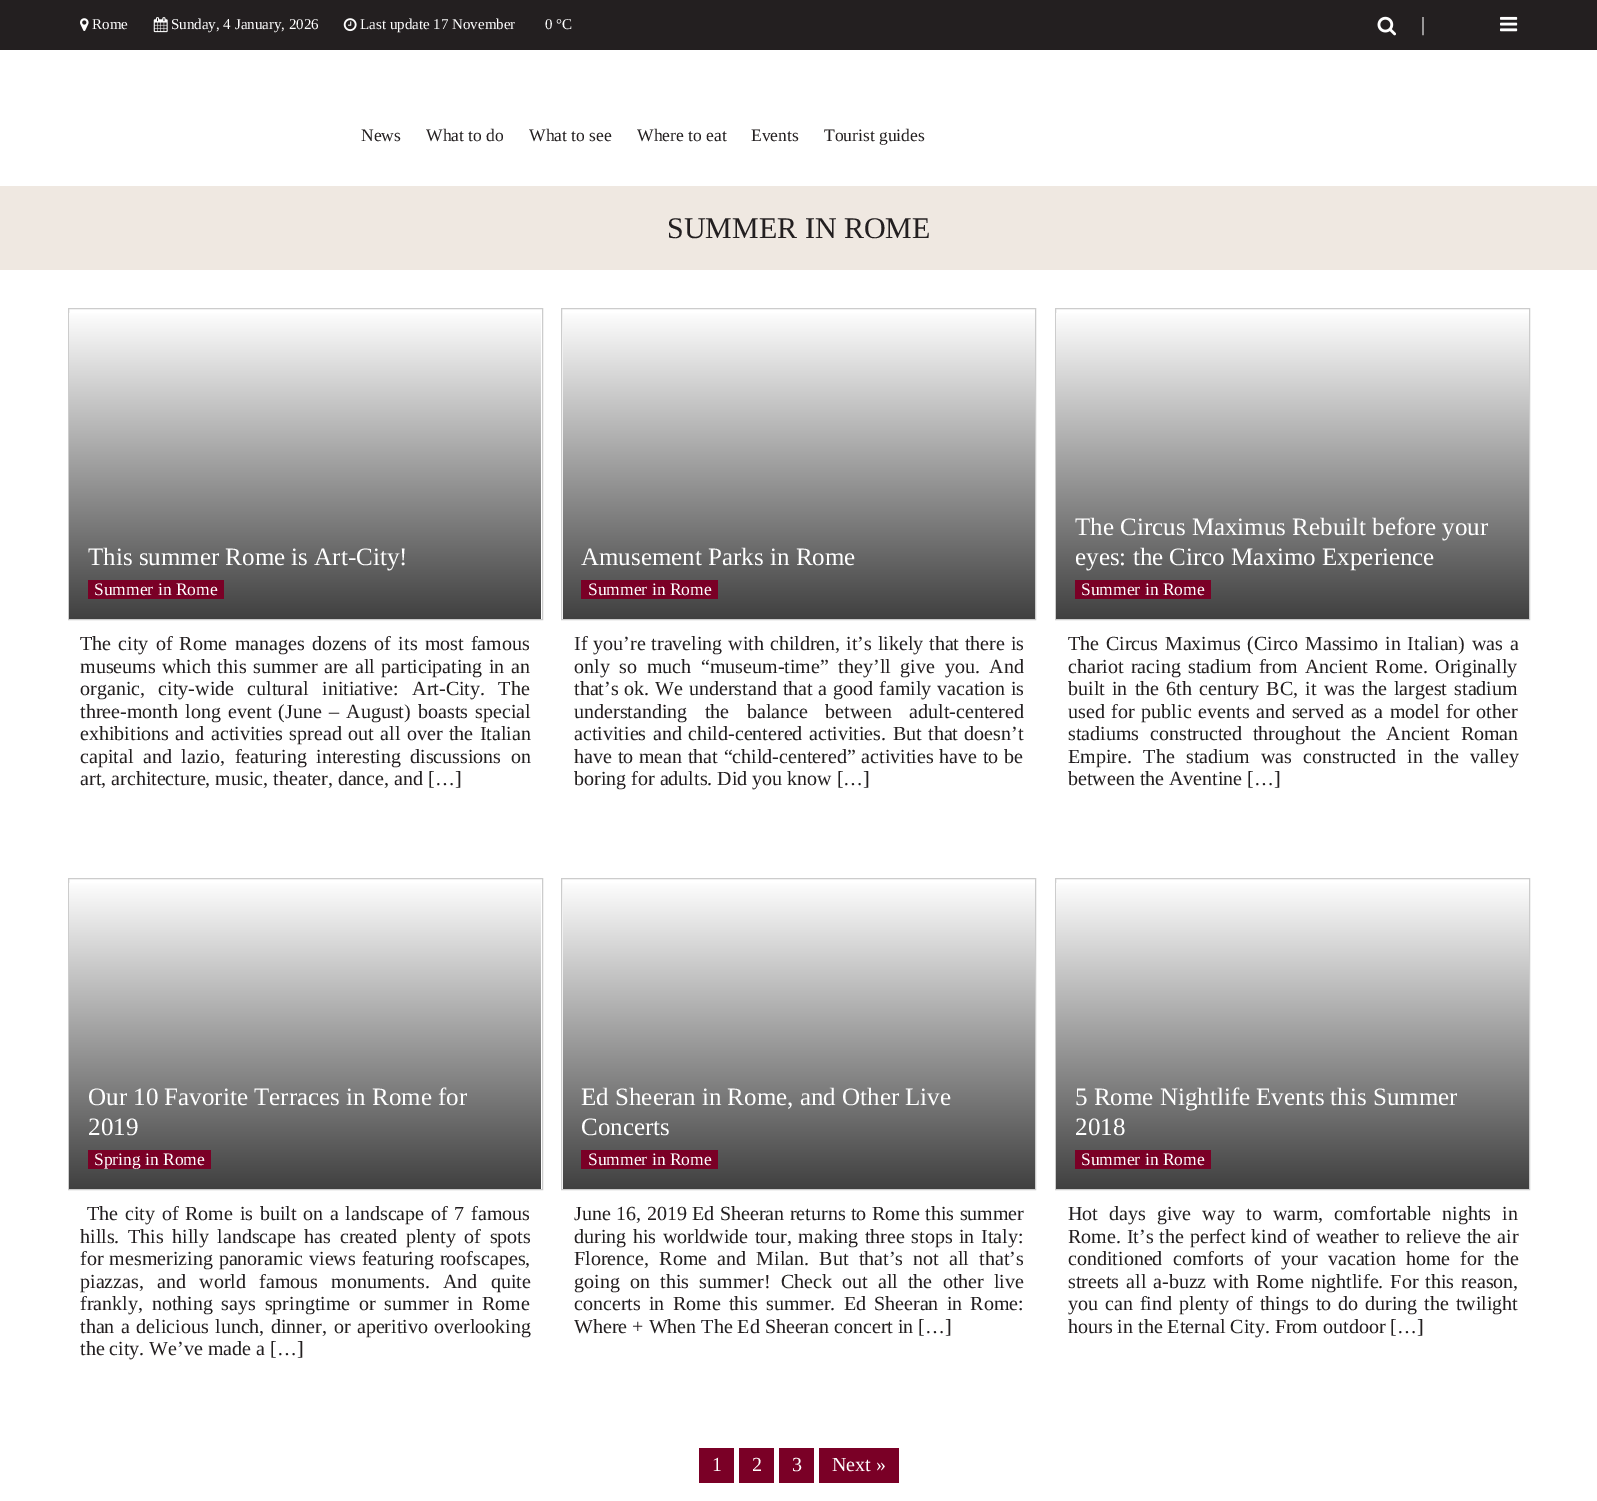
%!PS
<< /PageSize [1597 1501] >> setpagedevice
/picture { 5 dict begin { /h /w /y /x /name } { exch def } forall
  gsave x y translate w h scale
  w h 8 [w 0 0 h 0 0] name (r) file false 3 colorimage grestore end } def
0 1501 translate 1 -1 scale
4 setmiterlimit
1 setgray
0 0 1597 1501 rectfill
0.137 0.122 0.125 setrgbcolor
0 0 1597 50 rectfill
(img1.rgb) 80 18 9 13 picture
/LiberationSerif-Regular [15 0 0 -15 0 0] selectfont
1 setgray
92 29 moveto (Rome) show
(img2.rgb) 153 17 15 16 picture
171 29 moveto (Sunday, 4 January, 2026) show
(img3.rgb) 343 18 14 14 picture
360 29 moveto (Last update 17 November) show
545 29 moveto (0 °C) show
(img4.rgb) 1377 16 19 20 picture
/LiberationSerif-Regular [20 0 0 -20 0 0] selectfont
1421 31 moveto (|) show
(img5.rgb) 1500 16 18 16 picture
/LiberationSerif-Regular [17.5 0 0 -17.5 0 0] selectfont
0.137 0.122 0.125 setrgbcolor
361 141 moveto (News) show
426 141 moveto (What to do) show
529 141 moveto (What to see) show
637 141 moveto (Where to eat) show
751 141 moveto (Events) show
824 141 moveto (Tourist guides) show
0.937 0.91 0.882 setrgbcolor
0 186 1597 84 rectfill
/LiberationSerif-Regular [30 0 0 -30 0 0] selectfont
0.137 0.122 0.125 setrgbcolor
667 238 moveto (SUMMER IN ROME) show
0.8 setgray
68.5 308.5 474 311 rectstroke
gsave newpath 69 313 moveto 541 313 lineto 541 619 lineto 69 619 lineto closepath clip newpath
<< /ShadingType 2 /ColorSpace /DeviceRGB /Coords [305 619 305 309] /Extend [true true] /Function << /FunctionType 2 /Domain [0 1] /C0 [0.251 0.251 0.251] /C1 [1 1 1] /N 1 >> >> shfill grestore
/LiberationSerif-Regular [25 0 0 -25 0 0] selectfont
1 setgray
88 565 moveto (This summer Rome is Art-City!) show
0.478 0 0.149 setrgbcolor
88 580 136 19 rectfill
/LiberationSerif-Regular [17.5 0 0 -17.5 0 0] selectfont
1 setgray
94 595 moveto (Summer in Rome) show
/LiberationSerif-Regular [20 0 0 -20 0 0] selectfont
0.137 0.122 0.125 setrgbcolor
80 650 moveto 2.25 0 32 (The city of Rome manages dozens of its most famous) widthshow
80 673 moveto 1.5 0 32 (museums which this summer are all participating in an) widthshow
80 695 moveto 8.5 0 32 (organic, city-wide cultural initiative: Art-City. The) widthshow
80 718 moveto 2.25 0 32 (three-month long event \(June – August\) boasts special) widthshow
80 740 moveto 1.5 0 32 (exhibitions and activities spread out all over the Italian) widthshow
80 763 moveto 4.5 0 32 (capital and lazio, featuring interesting discussions on) widthshow
80 785 moveto (art, architecture, music, theater, dance, and […]) show
0.8 setgray
561.5 308.5 474 311 rectstroke
gsave newpath 563 313 moveto 1035 313 lineto 1035 619 lineto 563 619 lineto closepath clip newpath
<< /ShadingType 2 /ColorSpace /DeviceRGB /Coords [799 619 799 309] /Extend [true true] /Function << /FunctionType 2 /Domain [0 1] /C0 [0.251 0.251 0.251] /C1 [1 1 1] /N 1 >> >> shfill grestore
/LiberationSerif-Regular [25 0 0 -25 0 0] selectfont
1 setgray
581 565 moveto (Amusement Parks in Rome) show
0.478 0 0.149 setrgbcolor
581 580 137 19 rectfill
/LiberationSerif-Regular [17.5 0 0 -17.5 0 0] selectfont
1 setgray
588 595 moveto (Summer in Rome) show
/LiberationSerif-Regular [20 0 0 -20 0 0] selectfont
0.137 0.122 0.125 setrgbcolor
574 650 moveto 0.9 0 32 (If you’re traveling with children, it’s likely that there is) widthshow
574 673 moveto 4.75 0 32 (only so much “museum-time” they’ll give you. And) widthshow
574 695 moveto 0.9 0 32 (that’s ok. We understand that a good family vacation is) widthshow
574 718 moveto 12.5 0 32 (understanding the balance between adult-centered) widthshow
574 740 moveto 1.5 0 32 (activities and child-centered activities. But that doesn’t) widthshow
574 763 moveto 0.75 0 32 (have to mean that “child-centered” activities have to be) widthshow
574 785 moveto (boring for adults. Did you know […]) show
0.8 setgray
1055.5 308.5 474 311 rectstroke
gsave newpath 1056 313 moveto 1529 313 lineto 1529 619 lineto 1056 619 lineto closepath clip newpath
<< /ShadingType 2 /ColorSpace /DeviceRGB /Coords [1293 619 1293 309] /Extend [true true] /Function << /FunctionType 2 /Domain [0 1] /C0 [0.251 0.251 0.251] /C1 [1 1 1] /N 1 >> >> shfill grestore
/LiberationSerif-Regular [25 0 0 -25 0 0] selectfont
1 setgray
1075 535 moveto (The Circus Maximus Rebuilt before your) show
1075 565 moveto (eyes: the Circo Maximo Experience) show
0.478 0 0.149 setrgbcolor
1075 580 136 19 rectfill
/LiberationSerif-Regular [17.5 0 0 -17.5 0 0] selectfont
1 setgray
1081 595 moveto (Summer in Rome) show
/LiberationSerif-Regular [20 0 0 -20 0 0] selectfont
0.137 0.122 0.125 setrgbcolor
1068 650 moveto 1.75 0 32 (The Circus Maximus \(Circo Massimo in Italian\) was a) widthshow
1068 673 moveto 2.25 0 32 (chariot racing stadium from Ancient Rome. Originally) widthshow
1068 695 moveto 2.25 0 32 (built in the 6th century BC, it was the largest stadium) widthshow
1068 718 moveto 1.75 0 32 (used for public events and served as a model for other) widthshow
1068 740 moveto 5.75 0 32 (stadiums constructed throughout the Ancient Roman) widthshow
1068 763 moveto 6.5 0 32 (Empire. The stadium was constructed in the valley) widthshow
1068 785 moveto (between the Aventine […]) show
0.8 setgray
68.5 878.5 474 311 rectstroke
gsave newpath 69 883 moveto 541 883 lineto 541 1189 lineto 69 1189 lineto closepath clip newpath
<< /ShadingType 2 /ColorSpace /DeviceRGB /Coords [305 1189 305 879] /Extend [true true] /Function << /FunctionType 2 /Domain [0 1] /C0 [0.251 0.251 0.251] /C1 [1 1 1] /N 1 >> >> shfill grestore
/LiberationSerif-Regular [25 0 0 -25 0 0] selectfont
1 setgray
88 1105 moveto (Our 10 Favorite Terraces in Rome for) show
88 1135 moveto (2019) show
0.478 0 0.149 setrgbcolor
88 1150 123 19 rectfill
/LiberationSerif-Regular [17.5 0 0 -17.5 0 0] selectfont
1 setgray
94 1165 moveto (Spring in Rome) show
/LiberationSerif-Regular [20 0 0 -20 0 0] selectfont
0.137 0.122 0.125 setrgbcolor
87 1220 moveto 1.75 0 32 (The city of Rome is built on a landscape of 7 famous) widthshow
80 1243 moveto 3.5 0 32 (hills. This hilly landscape has created plenty of spots) widthshow
80 1265 moveto 1 0 32 (for mesmerizing panoramic views featuring roofscapes,) widthshow
80 1288 moveto 8.25 0 32 (piazzas, and world famous monuments. And quite) widthshow
80 1310 moveto 3.75 0 32 (frankly, nothing says springtime or summer in Rome) widthshow
80 1333 moveto 1.5 0 32 (than a delicious lunch, dinner, or aperitivo overlooking) widthshow
80 1355 moveto (the city. We’ve made a […]) show
0.8 setgray
561.5 878.5 474 311 rectstroke
gsave newpath 563 883 moveto 1035 883 lineto 1035 1189 lineto 563 1189 lineto closepath clip newpath
<< /ShadingType 2 /ColorSpace /DeviceRGB /Coords [799 1189 799 879] /Extend [true true] /Function << /FunctionType 2 /Domain [0 1] /C0 [0.251 0.251 0.251] /C1 [1 1 1] /N 1 >> >> shfill grestore
/LiberationSerif-Regular [25 0 0 -25 0 0] selectfont
1 setgray
581 1105 moveto (Ed Sheeran in Rome, and Other Live) show
581 1135 moveto (Concerts) show
0.478 0 0.149 setrgbcolor
581 1150 137 19 rectfill
/LiberationSerif-Regular [17.5 0 0 -17.5 0 0] selectfont
1 setgray
588 1165 moveto (Summer in Rome) show
/LiberationSerif-Regular [20 0 0 -20 0 0] selectfont
0.137 0.122 0.125 setrgbcolor
574 1220 moveto 0.5 0 32 (June 16, 2019 Ed Sheeran returns to Rome this summer) widthshow
574 1243 moveto 1.5 0 32 (during his worldwide tour, making three stops in Italy:) widthshow
574 1265 moveto 5.25 0 32 (Florence, Rome and Milan. But that’s not all that’s) widthshow
574 1288 moveto 5.25 0 32 (going on this summer! Check out all the other live) widthshow
574 1310 moveto 3.25 0 32 (concerts in Rome this summer. Ed Sheeran in Rome:) widthshow
574 1333 moveto (Where + When The Ed Sheeran concert in […]) show
0.8 setgray
1055.5 878.5 474 311 rectstroke
gsave newpath 1056 883 moveto 1529 883 lineto 1529 1189 lineto 1056 1189 lineto closepath clip newpath
<< /ShadingType 2 /ColorSpace /DeviceRGB /Coords [1293 1189 1293 879] /Extend [true true] /Function << /FunctionType 2 /Domain [0 1] /C0 [0.251 0.251 0.251] /C1 [1 1 1] /N 1 >> >> shfill grestore
/LiberationSerif-Regular [25 0 0 -25 0 0] selectfont
1 setgray
1075 1105 moveto (5 Rome Nightlife Events this Summer) show
1075 1135 moveto (2018) show
0.478 0 0.149 setrgbcolor
1075 1150 136 19 rectfill
/LiberationSerif-Regular [17.5 0 0 -17.5 0 0] selectfont
1 setgray
1081 1165 moveto (Summer in Rome) show
/LiberationSerif-Regular [20 0 0 -20 0 0] selectfont
0.137 0.122 0.125 setrgbcolor
1068 1220 moveto 6 0 32 (Hot days give way to warm, comfortable nights in) widthshow
1068 1243 moveto 1 0 32 (Rome. It’s the perfect kind of weather to relieve the air) widthshow
1068 1265 moveto 5.25 0 32 (conditioned comforts of your vacation home for the) widthshow
1068 1288 moveto 2 0 32 (streets all a-buzz with Rome nightlife. For this reason,) widthshow
1068 1310 moveto 2 0 32 (you can find plenty of things to do during the twilight) widthshow
1068 1333 moveto (hours in the Eternal City. From outdoor […]) show
0.478 0 0.149 setrgbcolor
699 1448 35 35 rectfill
1 setgray
712 1471 moveto (1) show
0.478 0 0.149 setrgbcolor
739 1448 35 35 rectfill
1 setgray
752 1471 moveto (2) show
0.478 0 0.149 setrgbcolor
779 1448 35 35 rectfill
1 setgray
792 1471 moveto (3) show
0.478 0 0.149 setrgbcolor
819 1448 80 35 rectfill
1 setgray
832 1471 moveto (Next ») show
showpage
